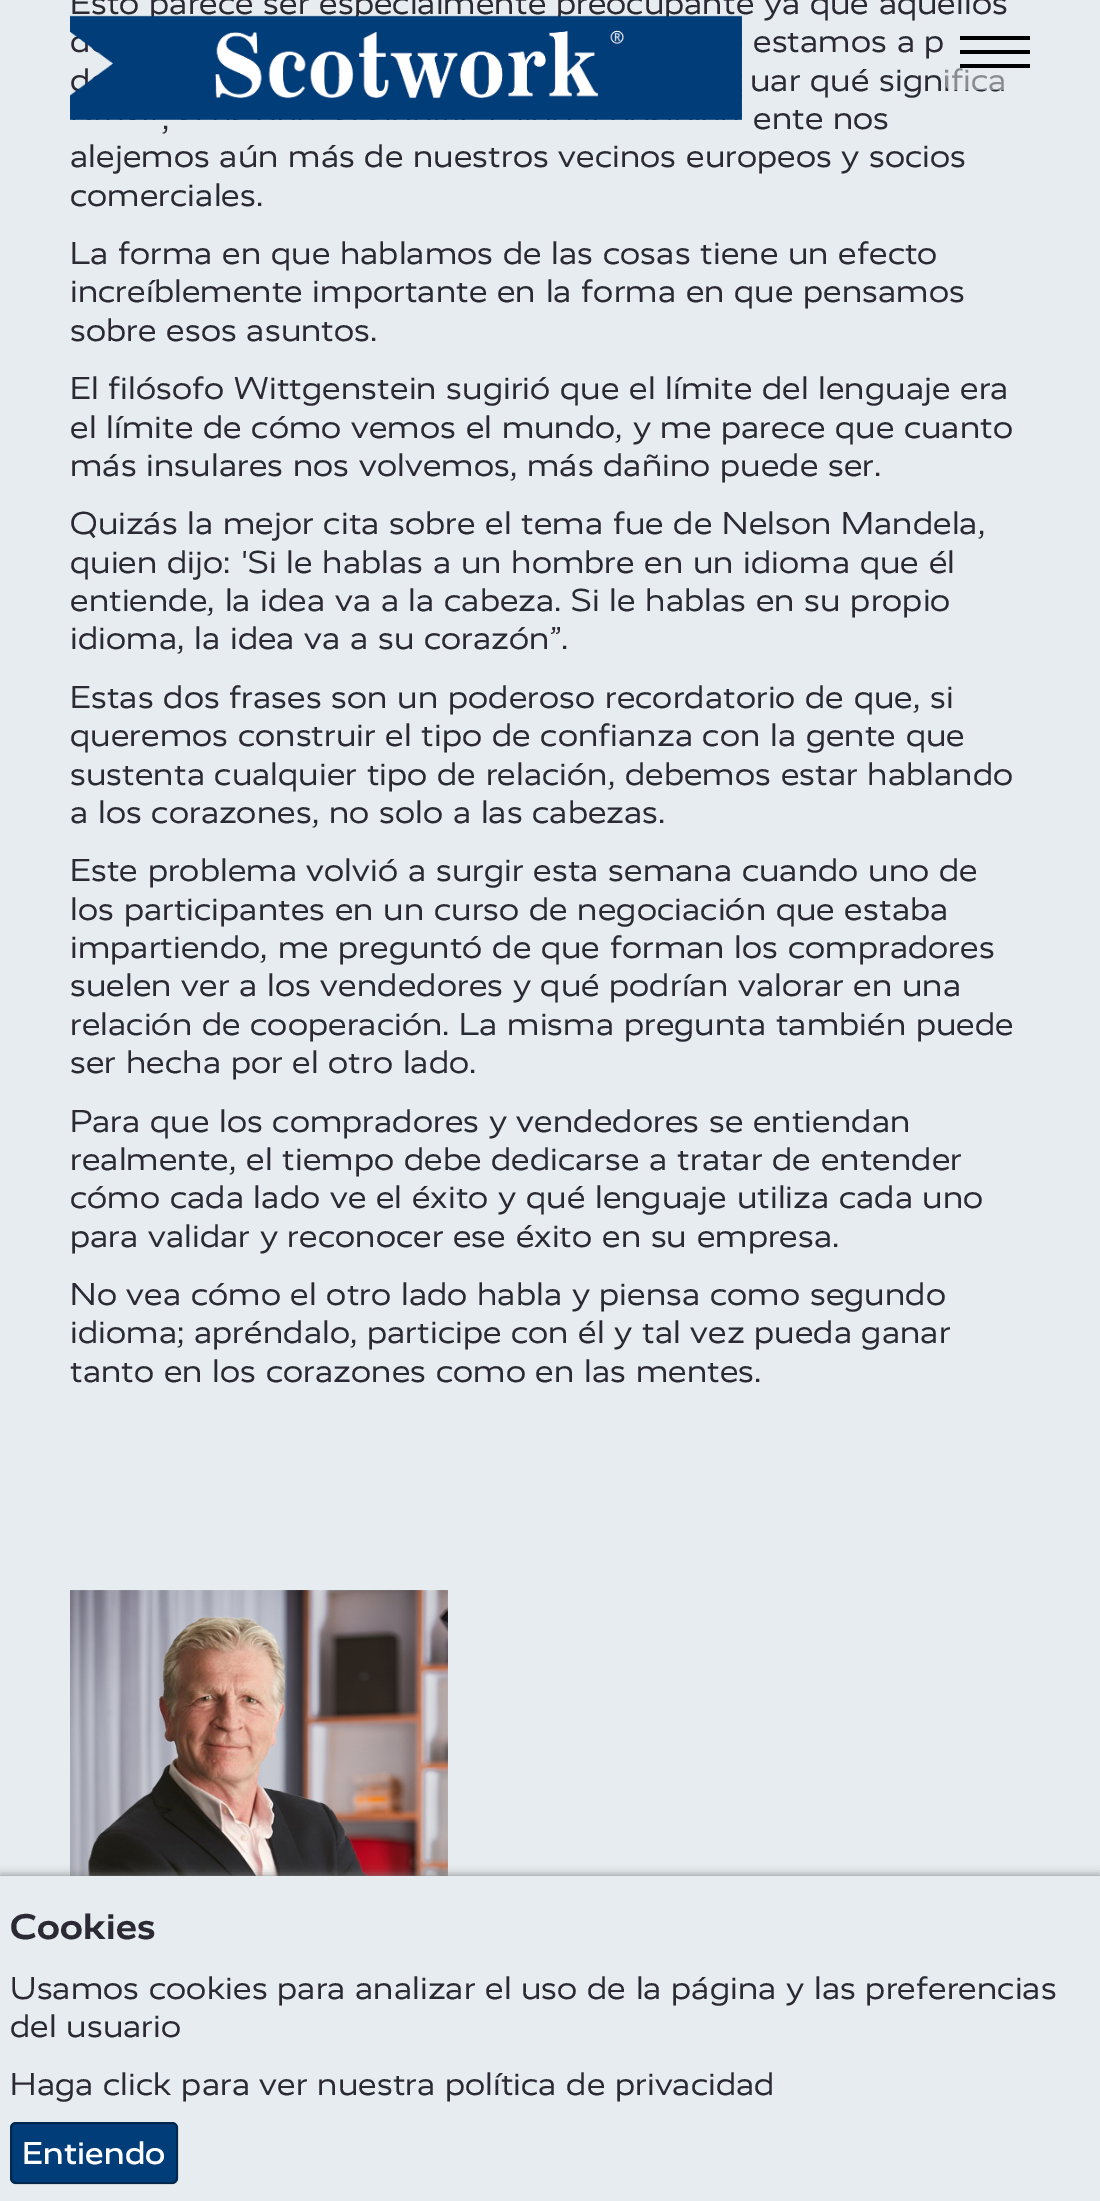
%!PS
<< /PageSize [1100 2201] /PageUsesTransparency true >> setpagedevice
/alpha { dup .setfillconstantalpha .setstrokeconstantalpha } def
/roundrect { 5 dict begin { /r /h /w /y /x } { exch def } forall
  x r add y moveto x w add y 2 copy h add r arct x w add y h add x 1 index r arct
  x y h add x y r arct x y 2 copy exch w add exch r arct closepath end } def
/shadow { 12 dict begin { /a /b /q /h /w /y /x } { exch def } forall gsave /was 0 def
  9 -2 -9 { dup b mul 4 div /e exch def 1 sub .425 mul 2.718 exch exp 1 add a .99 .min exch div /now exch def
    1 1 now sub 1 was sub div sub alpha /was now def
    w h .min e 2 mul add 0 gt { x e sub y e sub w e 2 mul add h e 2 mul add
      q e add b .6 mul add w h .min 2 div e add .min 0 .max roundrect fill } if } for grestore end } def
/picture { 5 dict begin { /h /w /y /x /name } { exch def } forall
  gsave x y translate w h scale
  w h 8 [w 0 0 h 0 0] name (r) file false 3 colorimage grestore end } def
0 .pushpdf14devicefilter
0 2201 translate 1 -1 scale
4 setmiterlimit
0.906 0.925 0.941 setrgbcolor
0 0 1100 2201 rectfill
/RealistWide-Regular [32 0 0 -32 0 0] selectfont
0.169 0.165 0.204 setrgbcolor
70 14 moveto 0.2 0 (Esto parece ser especialmente preocupante ya que aquellos) ashow
753 52 moveto 0.2 0 (estamos a p) ashow
70 91 moveto 0.2 0 (d) ashow
750 91 moveto 0.2 0 (uar qué significa) ashow
162 129 moveto 0.2 0 (,) ashow
753 129 moveto 0.2 0 (ente nos) ashow
70 167 moveto 0.2 0 (alejemos aún más de nuestros vecinos europeos y socios) ashow
70 206 moveto 0.2 0 (comerciales.) ashow
70 264 moveto 0.2 0 (La forma en que hablamos de las cosas tiene un efecto) ashow
70 302 moveto 0.2 0 (increíblemente importante en la forma en que pensamos) ashow
70 341 moveto 0.2 0 (sobre esos asuntos.) ashow
70 399 moveto 0.2 0 (El filósofo Wittgenstein sugirió que el límite del lenguaje era) ashow
70 438 moveto 0.2 0 (el límite de cómo vemos el mundo, y me parece que cuanto) ashow
70 476 moveto 0.2 0 (más insulares nos volvemos, más dañino puede ser.) ashow
70 534 moveto 0.2 0 (Quizás la mejor cita sobre el tema fue de Nelson Mandela,) ashow
70 573 moveto 0.2 0 (quien dijo: 'Si le hablas a un hombre en un idioma que él) ashow
70 611 moveto 0.2 0 (entiende, la idea va a la cabeza. Si le hablas en su propio) ashow
70 649 moveto 0.2 0 (idioma, la idea va a su corazón”.) ashow
70 708 moveto 0.2 0 (Estas dos frases son un poderoso recordatorio de que, si) ashow
70 746 moveto 0.2 0 (queremos construir el tipo de confianza con la gente que) ashow
70 785 moveto 0.2 0 (sustenta cualquier tipo de relación, debemos estar hablando) ashow
70 823 moveto 0.2 0 (a los corazones, no solo a las cabezas.) ashow
70 881 moveto 0.2 0 (Este problema volvió a surgir esta semana cuando uno de) ashow
70 920 moveto 0.2 0 (los participantes en un curso de negociación que estaba) ashow
70 958 moveto 0.2 0 (impartiendo, me preguntó de que forman los compradores) ashow
70 996 moveto 0.2 0 (suelen ver a los vendedores y qué podrían valorar en una) ashow
70 1035 moveto 0.2 0 (relación de cooperación. La misma pregunta también puede) ashow
70 1073 moveto 0.2 0 (ser hecha por el otro lado.) ashow
70 1132 moveto 0.2 0 (Para que los compradores y vendedores se entiendan) ashow
70 1170 moveto 0.2 0 (realmente, el tiempo debe dedicarse a tratar de entender) ashow
70 1208 moveto 0.2 0 (cómo cada lado ve el éxito y qué lenguaje utiliza cada uno) ashow
70 1247 moveto 0.2 0 (para validar y reconocer ese éxito en su empresa.) ashow
70 1305 moveto 0.2 0 (No vea cómo el otro lado habla y piensa como segundo) ashow
70 1343 moveto 0.2 0 (idioma; apréndalo, participe con él y tal vez pueda ganar) ashow
70 1382 moveto 0.2 0 (tanto en los corazones como en las mentes.) ashow
(img1.rgb) 70 15 672 105 picture
0.5 alpha
0.906 0.925 0.941 setrgbcolor
946 16 100 74 5 roundrect fill
1 alpha
0 setgray
960 36 70 4 rectfill
960 50 70 4 rectfill
960 64 70 4 rectfill
(img2.rgb) 70 1590 378 286 picture
0.502 setgray
0 1876 1100 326 0 5 1 shadow
0.906 0.925 0.941 setrgbcolor
0 1876 1100 325 rectfill
/RealistWide-Bold [36 0 0 -36 0 0] selectfont
0.169 0.165 0.204 setrgbcolor
10 1939 moveto 0.2 0 (Cookies) ashow
/RealistWide-Regular [32 0 0 -32 0 0] selectfont
10 1999 moveto 0.2 0 (Usamos cookies para analizar el uso de la página y las preferencias) ashow
10 2037 moveto 0.2 0 (del usuario) ashow
10 2095 moveto 0.2 0 (Haga click para ver nuestra política de privacidad) ashow
0 0.239 0.475 setrgbcolor
10 2122 168 62 6 roundrect fill
0.35 alpha
0 setgray
2 setlinewidth
11 2123 166 60 5 roundrect stroke
/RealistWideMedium-Medium [32 0 0 -32 0 0] selectfont
1 alpha
1 setgray
22 2164 moveto 0.2 0 (Entiendo) ashow
.poppdf14devicefilter showpage
